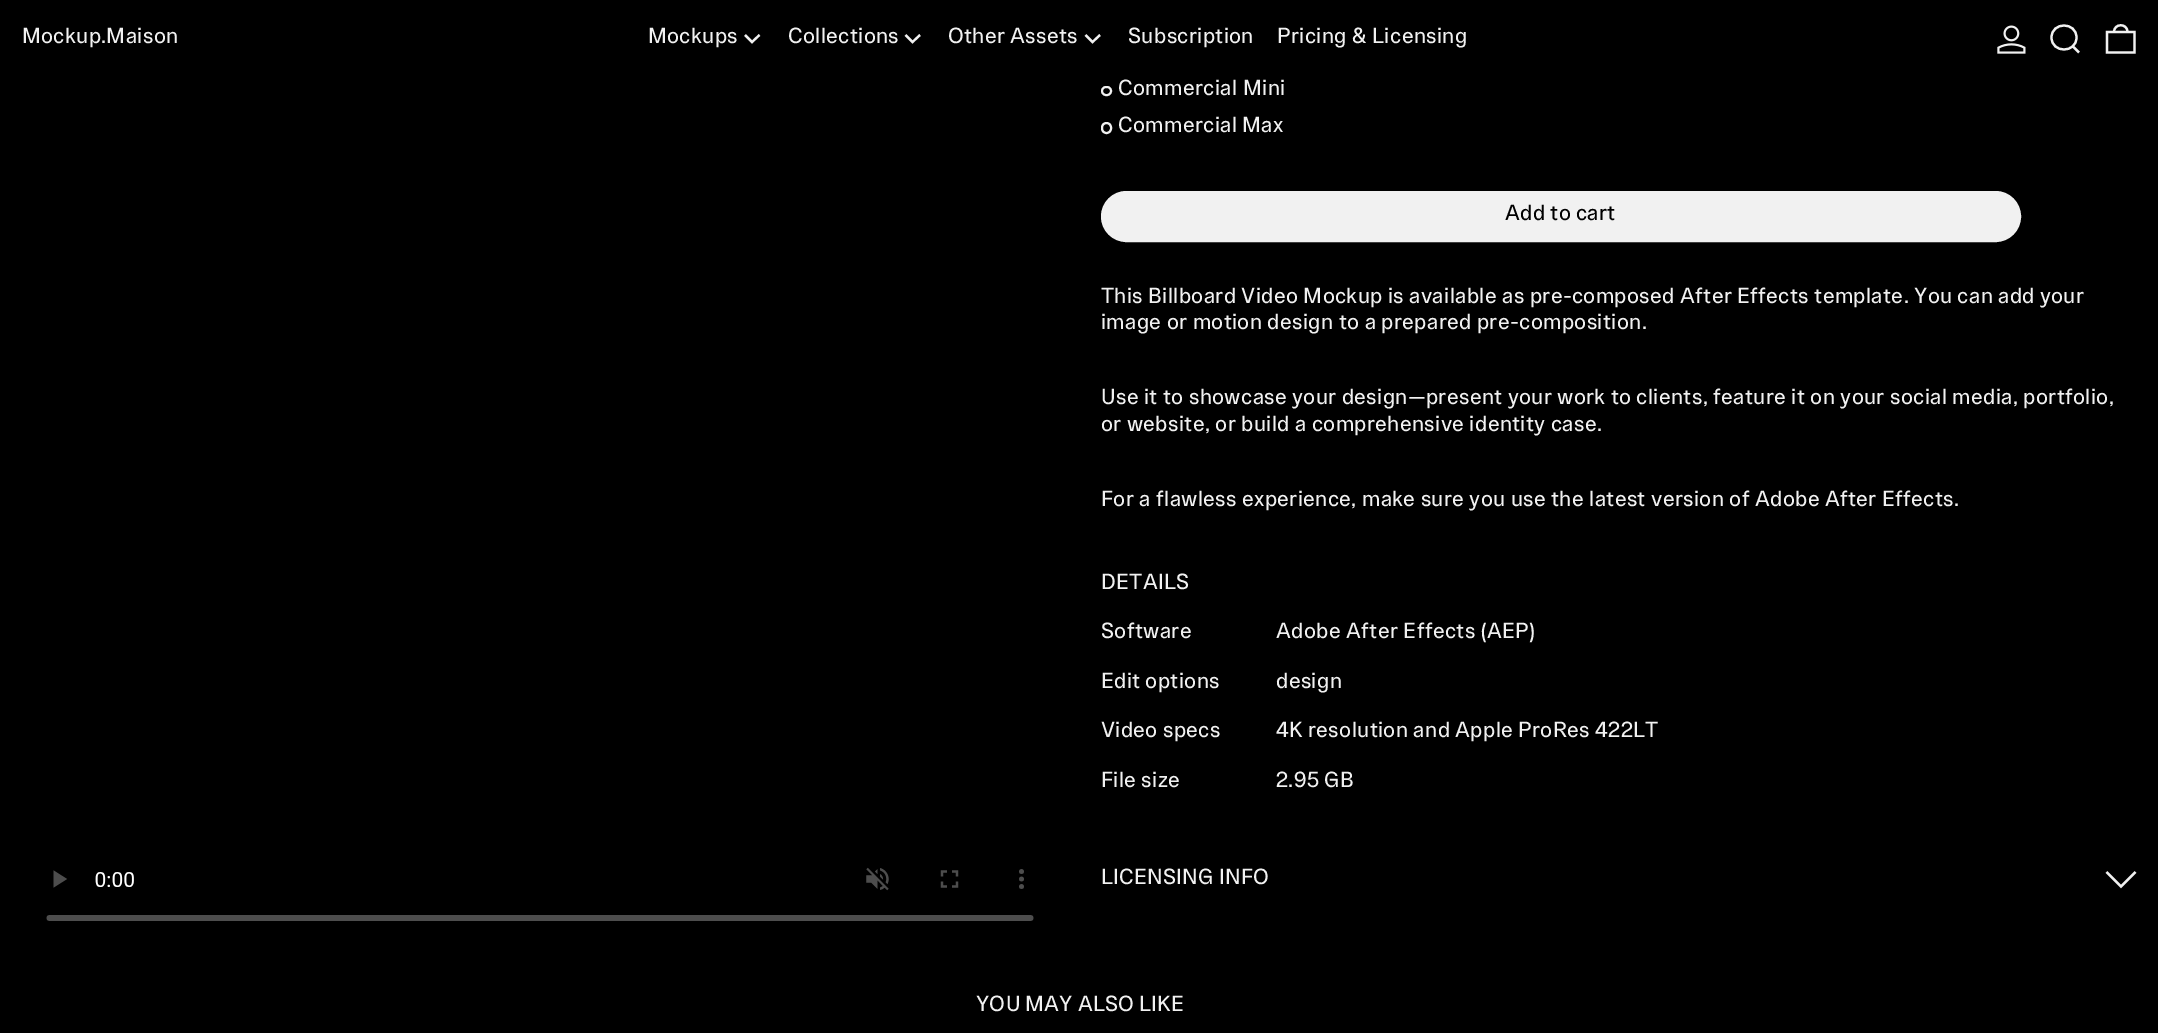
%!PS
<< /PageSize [2158 1033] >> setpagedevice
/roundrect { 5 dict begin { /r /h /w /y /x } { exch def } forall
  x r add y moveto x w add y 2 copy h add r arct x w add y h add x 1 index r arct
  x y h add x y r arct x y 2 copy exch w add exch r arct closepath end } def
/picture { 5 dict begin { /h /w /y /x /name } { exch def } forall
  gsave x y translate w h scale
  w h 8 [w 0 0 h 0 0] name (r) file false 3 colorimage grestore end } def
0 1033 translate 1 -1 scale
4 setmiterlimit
0 setgray
0 0 2158 1033 rectfill
/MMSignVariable-Regular [21.9 0 0 -21.9 0 0] selectfont
0.945 setgray
22 43 moveto 0.33 0 (Mockup.Maison) ashow
648 43 moveto 0.33 0 (Mockups) ashow
2.2 setlinewidth
newpath 745 35 moveto 752 42 lineto 759.5 35 lineto stroke
788 43 moveto 0.33 0 (Collections) ashow
newpath 905.5 35 moveto 912.5 42 lineto 920 35 lineto stroke
948 43 moveto 0.33 0 (Other Assets) ashow
newpath 1085.5 35 moveto 1092.5 42 lineto 1100 35 lineto stroke
1128 43 moveto 0.33 0 (Subscription) ashow
1277 43 moveto 0.5 0 32 0.33 0 (Pricing & Licensing) awidthshow
(img1.rgb) 1997 25 29 29 picture
newpath 2051.5 37.5 moveto 2051.5 53.5 2076.5 53.5 2076.5 37.5 curveto 2076.5 21.5 2051.5 21.5 2051.5 37.5 curveto closepath 2072.5 46 moveto 2079 52.5 lineto stroke
newpath 2107 32 moveto 2134.5 32 lineto 2134.5 52.5 lineto 2107 52.5 lineto closepath 2127.5 32 moveto 2127.5 23 2114 23 2114 32 curveto stroke
2 setlinewidth
1102 87 9 8 4 roundrect stroke
1118 95 moveto 1 0 32 0.33 0 (Commercial Mini) awidthshow
1102 123 9 10 4.5 roundrect stroke
1118 132 moveto 0.33 0 (Commercial Max) ashow
1102 192 918 49 24.5 roundrect gsave fill grestore
stroke
0 setgray
1505 220 moveto 0.33 0 (Add to cart) ashow
0.945 setgray
1101 303 moveto 0.25 0 32 0.33 0 (This Billboard Video Mockup is available as pre-composed After Effects template.) awidthshow
1914 303 moveto 0.33 0 (You can add your) ashow
1101 329 moveto 0.25 0 32 0.33 0 (image or motion design to a prepared pre-composition.) awidthshow
1101 404 moveto 0.25 0 32 0.33 0 (Use it to showcase your design—present your work to clients, feature it on your social media, portfolio,) awidthshow
1101 431 moveto 0.25 0 32 0.33 0 (or website, or build a comprehensive identity case.) awidthshow
1101 506 moveto 0.25 0 32 0.33 0 (For a flawless experience, make sure you use the latest version of Adobe After Effects.) awidthshow
1101 589 moveto 0.33 0 (DETAILS) ashow
1101 638 moveto 0.33 0 (Software) ashow
1276 638 moveto 0.5 0 32 0.33 0 (Adobe After Effects \(AEP\)) awidthshow
1101 688 moveto 0.33 0 (Edit options) ashow
1276 688 moveto 0.33 0 (design) ashow
1101 737 moveto 0.33 0 (Video specs) ashow
1276 737 moveto 0.25 0 32 0.33 0 (4K resolution and Apple ProRes 422LT) awidthshow
1101 787 moveto 0.33 0 (File size) ashow
1276 787 moveto 0.33 0 (2.95 GB) ashow
1101 884 moveto 0.25 0 (LICENSING INFO) ashow
2.2 setlinewidth
newpath 2106.5 872 moveto 2121 886.5 lineto 2135.5 872 lineto stroke
(img2.rgb) 46 867 988 54 picture
976 1011 moveto 0.25 0 (YOU MAY ALSO LIKE) ashow
showpage
